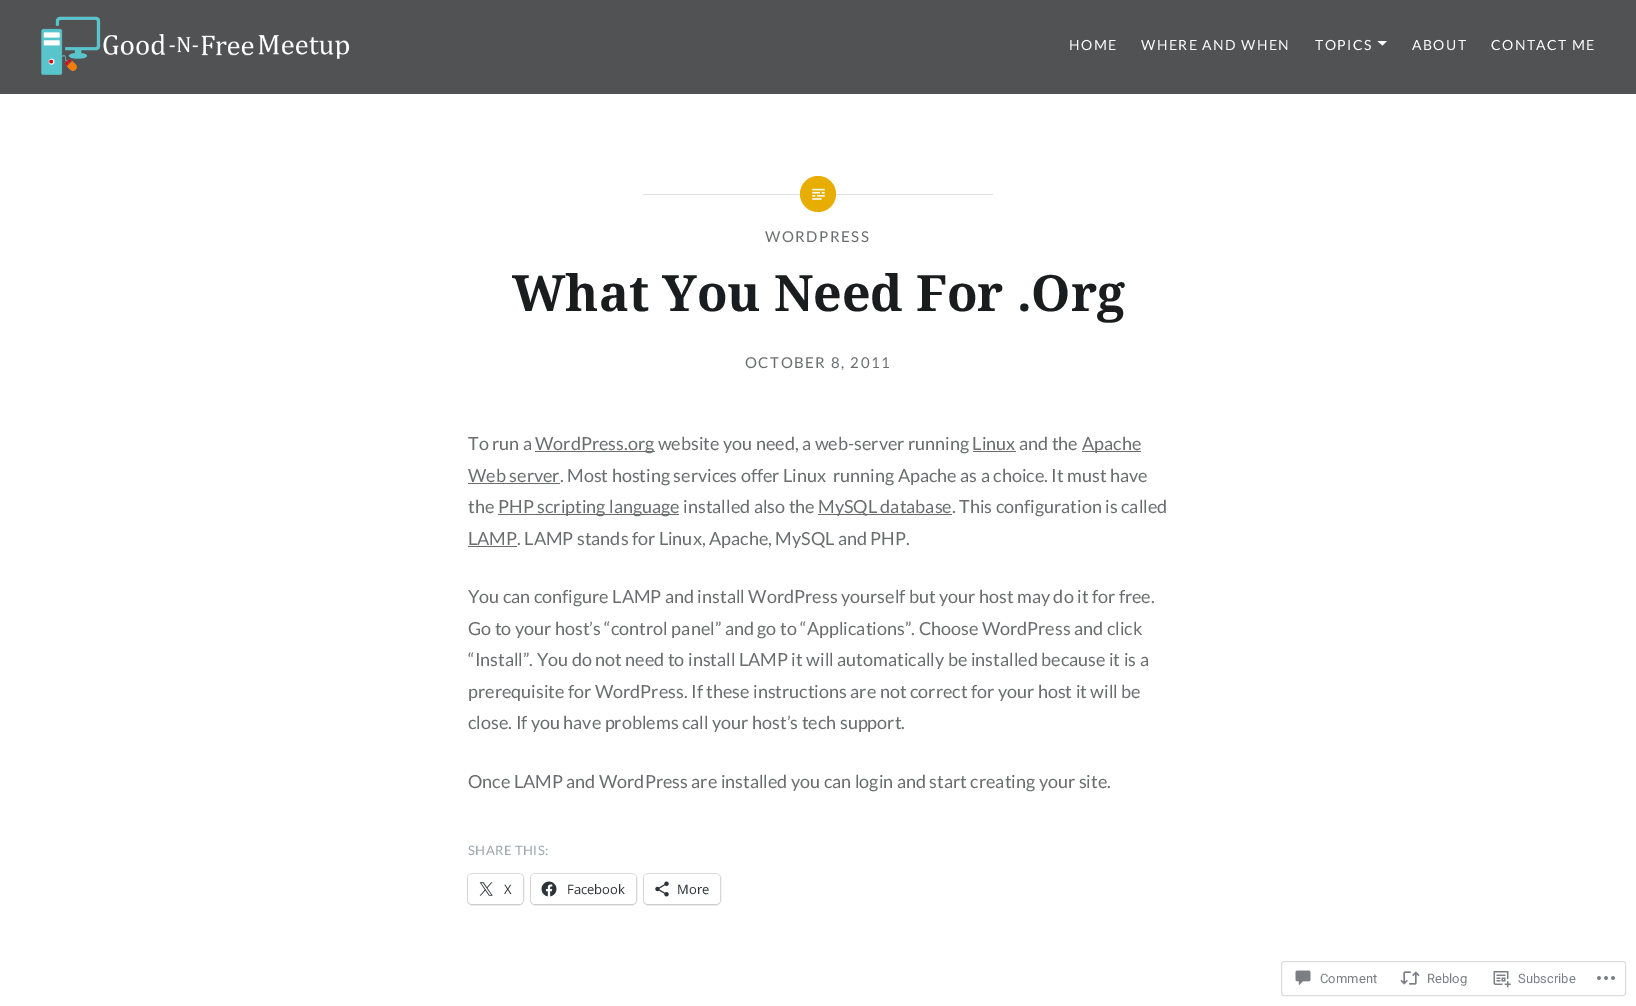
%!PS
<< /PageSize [1636 1006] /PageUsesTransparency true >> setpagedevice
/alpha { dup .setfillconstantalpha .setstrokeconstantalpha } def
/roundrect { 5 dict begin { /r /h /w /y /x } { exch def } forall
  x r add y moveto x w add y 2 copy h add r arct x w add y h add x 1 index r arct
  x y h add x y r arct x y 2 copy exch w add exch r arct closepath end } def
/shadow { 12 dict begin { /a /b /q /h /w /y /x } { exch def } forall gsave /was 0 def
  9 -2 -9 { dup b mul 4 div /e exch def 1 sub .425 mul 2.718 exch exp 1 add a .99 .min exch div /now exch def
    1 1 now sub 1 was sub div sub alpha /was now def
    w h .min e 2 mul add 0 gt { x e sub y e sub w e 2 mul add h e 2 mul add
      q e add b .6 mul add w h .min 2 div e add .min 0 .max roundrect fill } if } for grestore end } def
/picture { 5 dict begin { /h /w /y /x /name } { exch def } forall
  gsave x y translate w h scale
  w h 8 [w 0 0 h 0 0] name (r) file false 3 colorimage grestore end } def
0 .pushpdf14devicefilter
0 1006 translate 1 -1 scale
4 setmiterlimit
1 setgray
0 0 1636 1006 rectfill
0.314 0.322 0.329 setrgbcolor
0 0 1636 94 rectfill
(img1.rgb) 41 16 309 59 picture
/Lato-Regular [14 0 0 -14 0 0] selectfont
1 setgray
1069 50 moveto 1.4 0 (HOME) ashow
1141 50 moveto 1.4 0 (WHERE AND WHEN) ashow
1315 50 moveto 1.4 0 (TOPICS) ashow
newpath 1377.5 41 moveto 1387 41 lineto 1382.5 45.5 lineto closepath fill
1412 50 moveto 1.4 0 (ABOUT) ashow
1491 50 moveto 1.4 0 (CONTACT ME) ashow
0.878 setgray
643 194 350 1 rectfill
0.906 0.682 0.004 setrgbcolor
newpath 818 194 18 0 360 arc closepath fill
(img2.rgb) 812 188 13 12 picture
/Lato-Regular [15 0 0 -15 0 0] selectfont
0.416 0.424 0.431 setrgbcolor
765 242 moveto 1.5 0 (WORDPRESS) ashow
/NotoSerif-Bold [50 0 0 -50 0 0] selectfont
0.102 0.11 0.118 setrgbcolor
512 311 moveto (What You Need For .Org) show
/Lato-Regular [15 0 0 -15 0 0] selectfont
0.416 0.424 0.431 setrgbcolor
745 368 moveto 1.5 0 (OCTOBER 8, 2011) ashow
/Lato-Regular [18 0 0 -18 0 0] selectfont
468 450 moveto (To run a) show
535 451 120 1 rectfill
535 450 moveto (WordPress.org website you need, a web-server running Linux and the) show
1082 451 59 1 rectfill
1082 450 moveto (Apache) show
973 451 43 1 rectfill
468 483 92 1 rectfill
468 482 moveto (Web server. Most hosting services offer Linux  running Apache as a choice. It must have) show
468 513 moveto (the) show
498 514 181 1 rectfill
498 513 moveto (PHP scripting language installed also the) show
818 514 134 1 rectfill
818 513 moveto (MySQL database. This configuration is called) show
468 546 49 1 rectfill
468 545 moveto (LAMP. LAMP stands for Linux, Apache, MySQL and PHP.) show
468 603 moveto (You can configure LAMP and install WordPress yourself but your host may do it for free.) show
468 635 moveto (Go to your host’s “control panel” and go to “Applications”. Choose WordPress and click) show
468 666 moveto (“Install”. You do not need to install LAMP it will automatically be installed because it is a) show
468 698 moveto (prerequisite for WordPress. If these instructions are not correct for your host it will be) show
468 729 moveto (close. If you have problems call your host’s tech support.) show
468 788 moveto (Once LAMP and WordPress are installed you can login and start creating your site.) show
/Lato-Regular [13 0 0 -13 0 0] selectfont
0.616 0.647 0.678 setrgbcolor
468 855 moveto 0.5 0 (SHARE THIS:) ashow
0.878 setgray
467.5 873.5 56 31 4.5 roundrect stroke
0 setgray
468 875 55 30 4 1 0.12 shadow
1 setgray
468 874 55 30 4 roundrect fill
(img3.rgb) 479 882 14 14 picture
/OpenSans-Regular [13 0 0 -13 0 0] selectfont
0.173 0.2 0.22 setrgbcolor
504 894 moveto (X) show
0.878 setgray
530.5 873.5 106 31 4.5 roundrect stroke
0 setgray
531 875 105 30 4 1 0.12 shadow
1 setgray
531 874 105 30 4 roundrect fill
(img4.rgb) 541 881 16 16 picture
0.173 0.2 0.22 setrgbcolor
567 894 moveto (Facebook) show
0.878 setgray
643.5 873.5 77 31 4.5 roundrect stroke
0 setgray
644 875 76 30 4 1 0.12 shadow
1 setgray
644 874 76 30 4 roundrect fill
(img5.rgb) 655 881 14 16 picture
0.173 0.2 0.22 setrgbcolor
677 894 moveto (More) show
0.867 0.867 0.875 setrgbcolor
1281.5 961.5 344 34 2.5 roundrect stroke
(img6.rgb) 1295 970 16 16 picture
/Roboto-Regular [13 0 0 -13 0 0] selectfont
0.482 0.498 0.522 setrgbcolor
1320 983 moveto (Comment) show
(img7.rgb) 1400 971 20 14 picture
1427 983 moveto (Reblog) show
(img8.rgb) 1493 971 18 17 picture
1518 983 moveto (Subscribe) show
(img9.rgb) 1597 976 18 4 picture
.poppdf14devicefilter showpage
